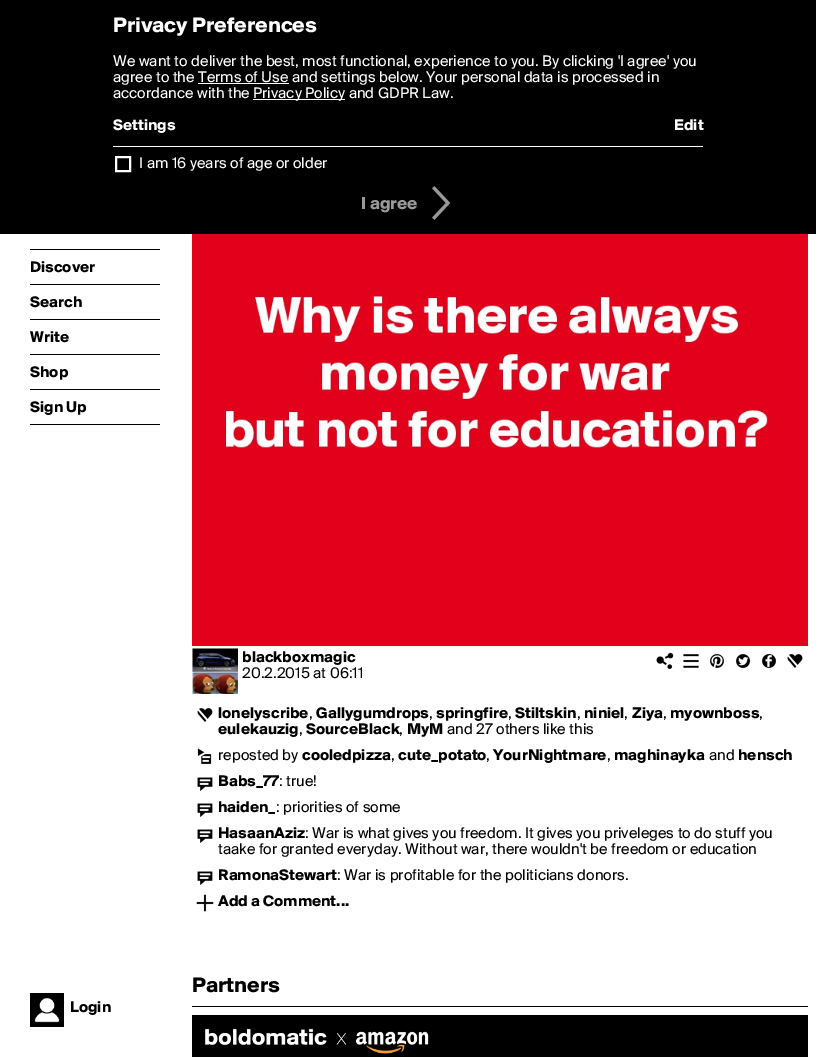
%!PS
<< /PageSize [816 1057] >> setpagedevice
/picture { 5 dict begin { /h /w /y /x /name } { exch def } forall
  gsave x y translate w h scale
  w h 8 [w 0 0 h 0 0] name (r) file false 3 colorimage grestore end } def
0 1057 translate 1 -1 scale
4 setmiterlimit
1 setgray
0 0 816 1057 rectfill
0 setgray
0 0 816 234 rectfill
/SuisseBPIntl-Bold [22 0 0 -22 0 0] selectfont
1 setgray
113 32 moveto (Privacy Preferences) show
/SuisseBPIntl-Regular [16 0 0 -16 0 0] selectfont
113 66 moveto (We want to deliver the best, most functional, experience to you. By clicking 'I agree' you) show
113 82 moveto (agree to the Terms of Use and settings below. Your personal data is processed in) show
198 83 91 1 rectfill
113 98 moveto (accordance with the) show
253 99 92 1 rectfill
253 98 moveto (Privacy Policy and GDPR Law.) show
/SuisseBPIntl-Bold [16 0 0 -16 0 0] selectfont
113 130 moveto (Settings) show
674 130 moveto (Edit) show
113 146 590 1 rectfill
2 setlinewidth
116 157 14 14 rectstroke
/SuisseBPIntl-Regular [16 0 0 -16 0 0] selectfont
139 168 moveto (I am 16 years of age or older) show
/SuisseBPIntl-Bold [18 0 0 -18 0 0] selectfont
0.6 setgray
361 209 moveto (I agree) show
(img1.rgb) 432 186 19 34 picture
0 setgray
30 249 130 1 rectfill
30 284 130 1 rectfill
/SuisseBPIntl-Bold [16 0 0 -16 0 0] selectfont
30 272 moveto (Discover) show
30 319 130 1 rectfill
30 307 moveto (Search) show
30 354 130 1 rectfill
30 342 moveto (Write) show
30 389 130 1 rectfill
30 377 moveto (Shop) show
30 424 130 1 rectfill
30 412 moveto (Sign Up) show
(img2.rgb) 30 993 34 34 picture
70 1012 moveto (Login) show
(img3.rgb) 192 234 616 412 picture
(img4.rgb) 192 648 46 46 picture
242 662 moveto (blackboxmagic) show
/SuisseBPIntl-Regular [16 0 0 -16 0 0] selectfont
242 678 moveto (20.2.2015 at 06:11) show
(img5.rgb) 656 652 18 18 picture
(img6.rgb) 683 654 16 14 picture
(img7.rgb) 710 654 14 14 picture
(img8.rgb) 736 654 15 14 picture
(img9.rgb) 762 653 14 15 picture
(img10.rgb) 787 654 16 14 picture
(img10.rgb) 197 708 16 14 picture
/SuisseBPIntl-Bold [16 0 0 -16 0 0] selectfont
218 718 moveto (lonelyscribe) show
/SuisseBPIntl-Regular [16 0 0 -16 0 0] selectfont
309 718 moveto (,) show
/SuisseBPIntl-Bold [16 0 0 -16 0 0] selectfont
316 718 moveto (Gallygumdrops) show
/SuisseBPIntl-Regular [16 0 0 -16 0 0] selectfont
429 718 moveto (,) show
/SuisseBPIntl-Bold [16 0 0 -16 0 0] selectfont
436 718 moveto (springfire) show
/SuisseBPIntl-Regular [16 0 0 -16 0 0] selectfont
508 718 moveto (,) show
/SuisseBPIntl-Bold [16 0 0 -16 0 0] selectfont
515 718 moveto (Stiltskin) show
/SuisseBPIntl-Regular [16 0 0 -16 0 0] selectfont
577 718 moveto (,) show
/SuisseBPIntl-Bold [16 0 0 -16 0 0] selectfont
584 718 moveto (niniel) show
/SuisseBPIntl-Regular [16 0 0 -16 0 0] selectfont
624 718 moveto (,) show
/SuisseBPIntl-Bold [16 0 0 -16 0 0] selectfont
632 718 moveto (Ziya) show
/SuisseBPIntl-Regular [16 0 0 -16 0 0] selectfont
663 718 moveto (,) show
/SuisseBPIntl-Bold [16 0 0 -16 0 0] selectfont
670 718 moveto (myownboss) show
/SuisseBPIntl-Regular [16 0 0 -16 0 0] selectfont
759 718 moveto (,) show
/SuisseBPIntl-Bold [16 0 0 -16 0 0] selectfont
218 734 moveto (eulekauzig) show
/SuisseBPIntl-Regular [16 0 0 -16 0 0] selectfont
299 734 moveto (,) show
/SuisseBPIntl-Bold [16 0 0 -16 0 0] selectfont
306 734 moveto (SourceBlack) show
/SuisseBPIntl-Regular [16 0 0 -16 0 0] selectfont
399 734 moveto (,) show
/SuisseBPIntl-Bold [16 0 0 -16 0 0] selectfont
407 734 moveto (MyM) show
/SuisseBPIntl-Regular [16 0 0 -16 0 0] selectfont
447 734 moveto (and 27 others like this) show
(img11.rgb) 197 748 15 17 picture
218 760 moveto (reposted by) show
/SuisseBPIntl-Bold [16 0 0 -16 0 0] selectfont
302 760 moveto (cooledpizza) show
/SuisseBPIntl-Regular [16 0 0 -16 0 0] selectfont
391 760 moveto (,) show
/SuisseBPIntl-Bold [16 0 0 -16 0 0] selectfont
398 760 moveto (cute_potato) show
/SuisseBPIntl-Regular [16 0 0 -16 0 0] selectfont
486 760 moveto (,) show
/SuisseBPIntl-Bold [16 0 0 -16 0 0] selectfont
493 760 moveto (YourNightmare) show
/SuisseBPIntl-Regular [16 0 0 -16 0 0] selectfont
607 760 moveto (,) show
/SuisseBPIntl-Bold [16 0 0 -16 0 0] selectfont
614 760 moveto (maghinayka) show
/SuisseBPIntl-Regular [16 0 0 -16 0 0] selectfont
709 760 moveto (and) show
/SuisseBPIntl-Bold [16 0 0 -16 0 0] selectfont
738 760 moveto (hensch) show
(img12.rgb) 197 777 16 14 picture
218 786 moveto (Babs_77) show
/SuisseBPIntl-Regular [16 0 0 -16 0 0] selectfont
279 786 moveto (: true!) show
(img12.rgb) 197 803 16 14 picture
/SuisseBPIntl-Bold [16 0 0 -16 0 0] selectfont
218 812 moveto (haiden_) show
/SuisseBPIntl-Regular [16 0 0 -16 0 0] selectfont
276 812 moveto (: priorities of some) show
(img12.rgb) 197 829 16 14 picture
/SuisseBPIntl-Bold [16 0 0 -16 0 0] selectfont
218 838 moveto (HasaanAziz) show
/SuisseBPIntl-Regular [16 0 0 -16 0 0] selectfont
305 838 moveto (: War is what gives you freedom. It gives you priveleges to do stuff you) show
218 854 moveto (taake for granted everyday. Without war, there wouldn't be freedom or education) show
(img12.rgb) 197 871 16 14 picture
/SuisseBPIntl-Bold [16 0 0 -16 0 0] selectfont
218 880 moveto (RamonaStewart) show
/SuisseBPIntl-Regular [16 0 0 -16 0 0] selectfont
337 880 moveto (: War is profitable for the politicians donors.) show
(img13.rgb) 196 894 18 18 picture
/SuisseBPIntl-Bold [16 0 0 -16 0 0] selectfont
218 906 moveto (Add a Comment...) show
192 1006 616 1 rectfill
/SuisseBPIntl-Bold [22 0 0 -22 0 0] selectfont
192 992 moveto (Partners) show
192 1015 616 42 rectfill
(img14.rgb) 205 1028 224 26 picture
showpage
